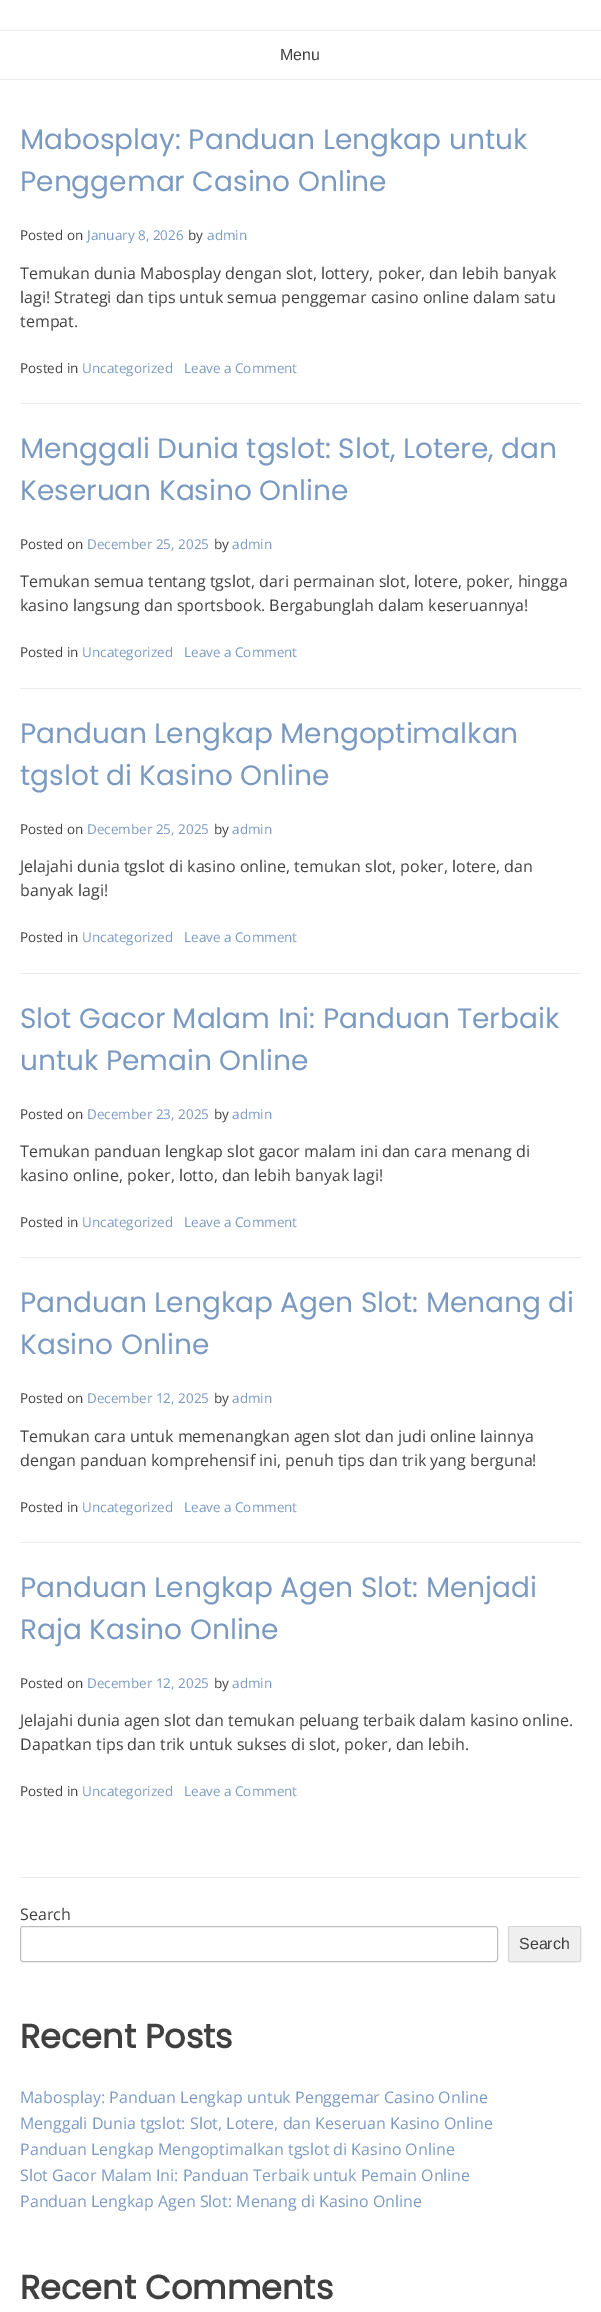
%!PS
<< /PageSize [601 2312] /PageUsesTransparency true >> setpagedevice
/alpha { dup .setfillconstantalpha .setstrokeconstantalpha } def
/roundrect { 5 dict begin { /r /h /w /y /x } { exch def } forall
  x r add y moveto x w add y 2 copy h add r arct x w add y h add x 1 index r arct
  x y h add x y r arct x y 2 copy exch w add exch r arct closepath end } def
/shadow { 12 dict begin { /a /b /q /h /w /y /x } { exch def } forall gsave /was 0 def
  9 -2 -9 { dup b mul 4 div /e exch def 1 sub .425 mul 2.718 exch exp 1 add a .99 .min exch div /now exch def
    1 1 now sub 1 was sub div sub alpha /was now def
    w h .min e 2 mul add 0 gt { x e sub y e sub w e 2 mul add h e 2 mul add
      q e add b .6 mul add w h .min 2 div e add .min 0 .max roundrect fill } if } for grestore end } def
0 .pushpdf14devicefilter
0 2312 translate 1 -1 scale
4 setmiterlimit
1 setgray
0 0 601 2312 rectfill
0.922 setgray
0 79 601 1 rectfill
0 30 601 1 rectfill
/LiberationSans-Regular [16 0 0 -16 0 0] selectfont
0.251 setgray
280 60 moveto (Menu) show
0.922 setgray
20 1877 561 1 rectfill
20 403 561 1 rectfill
/Poppins-Regular [28 0 0 -28 0 0] selectfont
0.475 0.6 0.757 setrgbcolor
20 149 moveto (Mabosplay: Panduan Lengkap untuk) show
20 191 moveto (Penggemar Casino Online) show
/OpenSans-Regular [13.5 0 0 -13.5 0 0] selectfont
0.251 setgray
20 240 moveto (Posted on) show
0.475 0.6 0.757 setrgbcolor
87 240 moveto (January 8, 2026) show
0.251 setgray
188 240 moveto (by) show
0.475 0.6 0.757 setrgbcolor
207 240 moveto (admin) show
/OpenSans-Regular [16 0 0 -16 0 0] selectfont
0.251 setgray
20 279 moveto (Temukan dunia Mabosplay dengan slot, lottery, poker, dan lebih banyak) show
20 303 moveto (lagi! Strategi dan tips untuk semua penggemar casino online dalam satu) show
20 327 moveto (tempat.) show
/OpenSans-Regular [13.5 0 0 -13.5 0 0] selectfont
20 373 moveto (Posted in) show
0.475 0.6 0.757 setrgbcolor
82 373 moveto (Uncategorized) show
184 373 moveto (Leave a Comment) show
0.922 setgray
20 688 561 1 rectfill
/Poppins-Regular [28 0 0 -28 0 0] selectfont
0.475 0.6 0.757 setrgbcolor
20 458 moveto (Menggali Dunia tgslot: Slot, Lotere, dan) show
20 500 moveto (Keseruan Kasino Online) show
/OpenSans-Regular [13.5 0 0 -13.5 0 0] selectfont
0.251 setgray
20 549 moveto (Posted on) show
0.475 0.6 0.757 setrgbcolor
87 549 moveto (December 25, 2025) show
0.251 setgray
214 549 moveto (by) show
0.475 0.6 0.757 setrgbcolor
232 549 moveto (admin) show
/OpenSans-Regular [16 0 0 -16 0 0] selectfont
0.251 setgray
20 587 moveto (Temukan semua tentang tgslot, dari permainan slot, lotere, poker, hingga) show
20 611 moveto (kasino langsung dan sportsbook. Bergabunglah dalam keseruannya!) show
/OpenSans-Regular [13.5 0 0 -13.5 0 0] selectfont
20 657 moveto (Posted in) show
0.475 0.6 0.757 setrgbcolor
82 657 moveto (Uncategorized) show
184 657 moveto (Leave a Comment) show
0.922 setgray
20 973 561 1 rectfill
/Poppins-Regular [28 0 0 -28 0 0] selectfont
0.475 0.6 0.757 setrgbcolor
20 743 moveto (Panduan Lengkap Mengoptimalkan) show
20 785 moveto (tgslot di Kasino Online) show
/OpenSans-Regular [13.5 0 0 -13.5 0 0] selectfont
0.251 setgray
20 834 moveto (Posted on) show
0.475 0.6 0.757 setrgbcolor
87 834 moveto (December 25, 2025) show
0.251 setgray
214 834 moveto (by) show
0.475 0.6 0.757 setrgbcolor
232 834 moveto (admin) show
/OpenSans-Regular [16 0 0 -16 0 0] selectfont
0.251 setgray
20 872 moveto (Jelajahi dunia tgslot di kasino online, temukan slot, poker, lotere, dan) show
20 896 moveto (banyak lagi!) show
/OpenSans-Regular [13.5 0 0 -13.5 0 0] selectfont
20 942 moveto (Posted in) show
0.475 0.6 0.757 setrgbcolor
82 942 moveto (Uncategorized) show
184 942 moveto (Leave a Comment) show
0.922 setgray
20 1257 561 1 rectfill
/Poppins-Regular [28 0 0 -28 0 0] selectfont
0.475 0.6 0.757 setrgbcolor
20 1028 moveto (Slot Gacor Malam Ini: Panduan Terbaik) show
20 1070 moveto (untuk Pemain Online) show
/OpenSans-Regular [13.5 0 0 -13.5 0 0] selectfont
0.251 setgray
20 1119 moveto (Posted on) show
0.475 0.6 0.757 setrgbcolor
87 1119 moveto (December 23, 2025) show
0.251 setgray
214 1119 moveto (by) show
0.475 0.6 0.757 setrgbcolor
232 1119 moveto (admin) show
/OpenSans-Regular [16 0 0 -16 0 0] selectfont
0.251 setgray
20 1157 moveto (Temukan panduan lengkap slot gacor malam ini dan cara menang di) show
20 1181 moveto (kasino online, poker, lotto, dan lebih banyak lagi!) show
/OpenSans-Regular [13.5 0 0 -13.5 0 0] selectfont
20 1227 moveto (Posted in) show
0.475 0.6 0.757 setrgbcolor
82 1227 moveto (Uncategorized) show
184 1227 moveto (Leave a Comment) show
0.922 setgray
20 1542 561 1 rectfill
/Poppins-Regular [28 0 0 -28 0 0] selectfont
0.475 0.6 0.757 setrgbcolor
20 1312 moveto (Panduan Lengkap Agen Slot: Menang di) show
20 1354 moveto (Kasino Online) show
/OpenSans-Regular [13.5 0 0 -13.5 0 0] selectfont
0.251 setgray
20 1403 moveto (Posted on) show
0.475 0.6 0.757 setrgbcolor
87 1403 moveto (December 12, 2025) show
0.251 setgray
214 1403 moveto (by) show
0.475 0.6 0.757 setrgbcolor
232 1403 moveto (admin) show
/OpenSans-Regular [16 0 0 -16 0 0] selectfont
0.251 setgray
20 1442 moveto (Temukan cara untuk memenangkan agen slot dan judi online lainnya) show
20 1466 moveto (dengan panduan komprehensif ini, penuh tips dan trik yang berguna!) show
/OpenSans-Regular [13.5 0 0 -13.5 0 0] selectfont
20 1512 moveto (Posted in) show
0.475 0.6 0.757 setrgbcolor
82 1512 moveto (Uncategorized) show
184 1512 moveto (Leave a Comment) show
/Poppins-Regular [28 0 0 -28 0 0] selectfont
20 1597 moveto (Panduan Lengkap Agen Slot: Menjadi) show
20 1639 moveto (Raja Kasino Online) show
/OpenSans-Regular [13.5 0 0 -13.5 0 0] selectfont
0.251 setgray
20 1688 moveto (Posted on) show
0.475 0.6 0.757 setrgbcolor
87 1688 moveto (December 12, 2025) show
0.251 setgray
214 1688 moveto (by) show
0.475 0.6 0.757 setrgbcolor
232 1688 moveto (admin) show
/OpenSans-Regular [16 0 0 -16 0 0] selectfont
0.251 setgray
20 1726 moveto (Jelajahi dunia agen slot dan temukan peluang terbaik dalam kasino online.) show
20 1750 moveto (Dapatkan tips dan trik untuk sukses di slot, poker, dan lebih.) show
/OpenSans-Regular [13.5 0 0 -13.5 0 0] selectfont
20 1796 moveto (Posted in) show
0.475 0.6 0.757 setrgbcolor
82 1796 moveto (Uncategorized) show
184 1796 moveto (Leave a Comment) show
/OpenSans-Regular [16 0 0 -16 0 0] selectfont
0.251 setgray
20 1920 moveto (Search) show
0.749 setgray
20.5 1926.5 477 35 2.5 roundrect stroke
0 setgray
508 1927 73 36 2 1 0.06 shadow
0.937 setgray
508 1926 73 36 2 roundrect fill
0.961 setgray
newpath 510 1928 moveto 568 1928 lineto 577 1928 580 1924 580 1934 curveto 580 1924 581 1927 568 1927 curveto 522 1927 lineto 515 1927 509 1924 509 1930 curveto closepath 509 1961 moveto 509 1956 lineto closepath eofill
0.1 alpha
0 setgray
508.5 1926.5 72 35 1.5 roundrect stroke
/LiberationSans-Regular [16 0 0 -16 0 0] selectfont
1 alpha
0.251 setgray
519 1949 moveto (Search) show
/Poppins-Bold [33.5 0 0 -33.5 0 0] selectfont
20 2048 moveto (Recent Posts) show
/OpenSans-Regular [16 0 0 -16 0 0] selectfont
0.475 0.6 0.757 setrgbcolor
20 2103 moveto (Mabosplay: Panduan Lengkap untuk Penggemar Casino Online) show
20 2129 moveto (Menggali Dunia tgslot: Slot, Lotere, dan Keseruan Kasino Online) show
20 2155 moveto (Panduan Lengkap Mengoptimalkan tgslot di Kasino Online) show
20 2181 moveto (Slot Gacor Malam Ini: Panduan Terbaik untuk Pemain Online) show
20 2207 moveto (Panduan Lengkap Agen Slot: Menang di Kasino Online) show
/Poppins-Bold [33.5 0 0 -33.5 0 0] selectfont
0.251 setgray
20 2299 moveto (Recent Comments) show
.poppdf14devicefilter showpage
